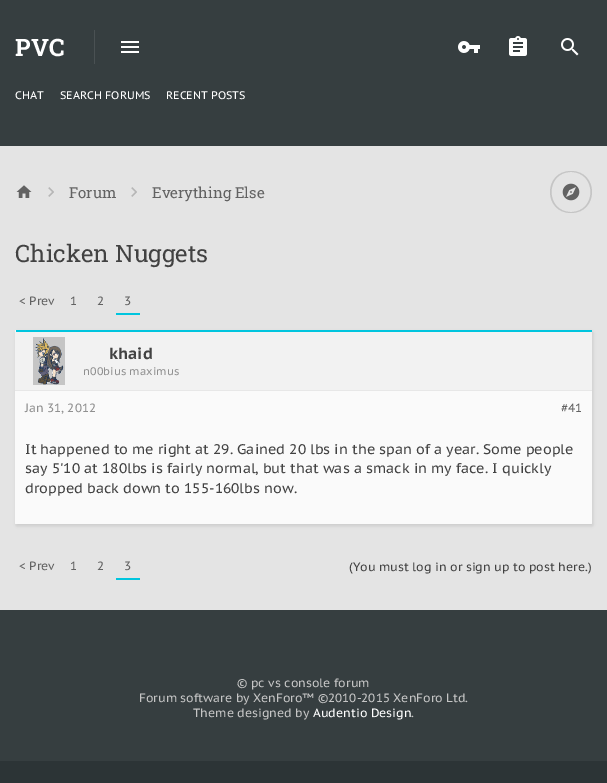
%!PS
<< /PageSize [607 783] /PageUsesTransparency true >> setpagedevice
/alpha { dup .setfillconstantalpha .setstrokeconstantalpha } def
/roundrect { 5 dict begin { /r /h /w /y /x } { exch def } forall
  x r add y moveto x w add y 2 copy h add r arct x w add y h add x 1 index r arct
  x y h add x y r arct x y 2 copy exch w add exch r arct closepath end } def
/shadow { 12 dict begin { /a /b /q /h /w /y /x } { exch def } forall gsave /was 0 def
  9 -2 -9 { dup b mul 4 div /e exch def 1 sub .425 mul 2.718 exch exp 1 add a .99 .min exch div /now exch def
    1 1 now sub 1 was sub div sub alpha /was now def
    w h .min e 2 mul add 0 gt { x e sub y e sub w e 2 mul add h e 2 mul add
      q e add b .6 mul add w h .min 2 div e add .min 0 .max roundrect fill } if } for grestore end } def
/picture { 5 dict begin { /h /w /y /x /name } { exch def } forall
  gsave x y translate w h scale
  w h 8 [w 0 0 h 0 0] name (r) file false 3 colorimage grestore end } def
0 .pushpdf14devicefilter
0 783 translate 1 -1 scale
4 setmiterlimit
0.894 setgray
0 0 607 783 rectfill
0.212 0.243 0.251 setrgbcolor
0 0 607 146 rectfill
0.29 0.318 0.325 setrgbcolor
94 30 1 34 rectfill
/RobotoSlab-Bold [24 0 0 -24 0 0] selectfont
1 setgray
15 56 moveto (PVC) show
(img1.rgb) 121 41 18 12 picture
/PTSansCaption-Regular [11 0 0 -11 0 0] selectfont
15 99 moveto (CHAT) show
60 99 moveto (SEARCH FORUMS) show
166 99 moveto (RECENT POSTS) show
(img2.rgb) 458 41 22 12 picture
(img3.rgb) 509 36 18 20 picture
(img4.rgb) 561 38 18 18 picture
(img5.rgb) 16 185 16 13 picture
(img6.rgb) 48 187 6 10 picture
/RobotoSlab-Regular [15 0 0 -15 0 0] selectfont
0.384 setgray
69 198 moveto (Forum) show
(img6.rgb) 131 187 6 10 picture
152 198 moveto (Everything Else) show
0.773 setgray
newpath 571 171 moveto 599 171 599 213 571 213 curveto 543 213 543 171 571 171 curveto closepath 571 172 moveto 545 172 545 212 571 212 curveto 597 212 597 172 571 172 curveto closepath eofill
(img7.rgb) 562 183 18 18 picture
/RobotoSlab-Regular [24 0 0 -24 0 0] selectfont
0.259 setgray
15 262 moveto (Chicken Nuggets) show
/PTSansCaption-Regular [12 0 0 -12 0 0] selectfont
0.384 setgray
19 305 moveto (< Prev) show
70 305 moveto (1) show
97 305 moveto (2) show
0 0.773 0.871 setrgbcolor
116 313 24 2 rectfill
0.384 setgray
124 305 moveto (3) show
0 setgray
16 332 577 194 1 1.5 0.1 shadow
0.98 setgray
15 330 577 194 1 roundrect fill
0 0.773 0.871 setrgbcolor
16 330 576 2 rectfill
0.949 setgray
15 332 577 58 rectfill
0.906 setgray
15 390 577 1 rectfill
0.773 setgray
33 337 32 48 rectfill
(img8.rgb) 35 338 29 47 picture
/PTSansCaption-Bold [16 0 0 -16 0 0] selectfont
0.259 setgray
109 359 moveto (khaid) show
/PTSansCaption-Regular [11 0 0 -11 0 0] selectfont
0.565 setgray
83 375 moveto (n00bius maximus) show
/PTSansCaption-Regular [12 0 0 -12 0 0] selectfont
25 412 moveto (Jan 31, 2012) show
0.384 setgray
561 412 moveto (#41) show
/PTSansCaption-Regular [14 0 0 -14 0 0] selectfont
0.259 setgray
25 454 moveto (It happened to me right at 29. Gained 20 lbs in the span of a year. Some people) show
25 473 moveto (say 5'10 at 180lbs is fairly normal, but that was a smack in my face. I quickly) show
25 493 moveto (dropped back down to 155-160lbs now.) show
/PTSansCaption-Regular [12 0 0 -12 0 0] selectfont
0.384 setgray
19 570 moveto (< Prev) show
70 570 moveto (1) show
97 570 moveto (2) show
0 0.773 0.871 setrgbcolor
116 578 24 2 rectfill
0.384 setgray
124 570 moveto (3) show
0.259 setgray
349 571 moveto (\(You must log in or sign up to post here.\)) show
0.212 0.243 0.251 setrgbcolor
0 610 607 151 rectfill
0.773 setgray
237 687 moveto (© pc vs console forum) show
139 702 moveto (Forum software by XenForo™ ©2010-2015 XenForo Ltd.) show
193 717 moveto (Theme designed by) show
1 setgray
313 717 moveto (Audentio Design) show
0.773 setgray
411 717 moveto (.) show
0.173 0.204 0.212 setrgbcolor
0 761 607 22 rectfill
.poppdf14devicefilter showpage
